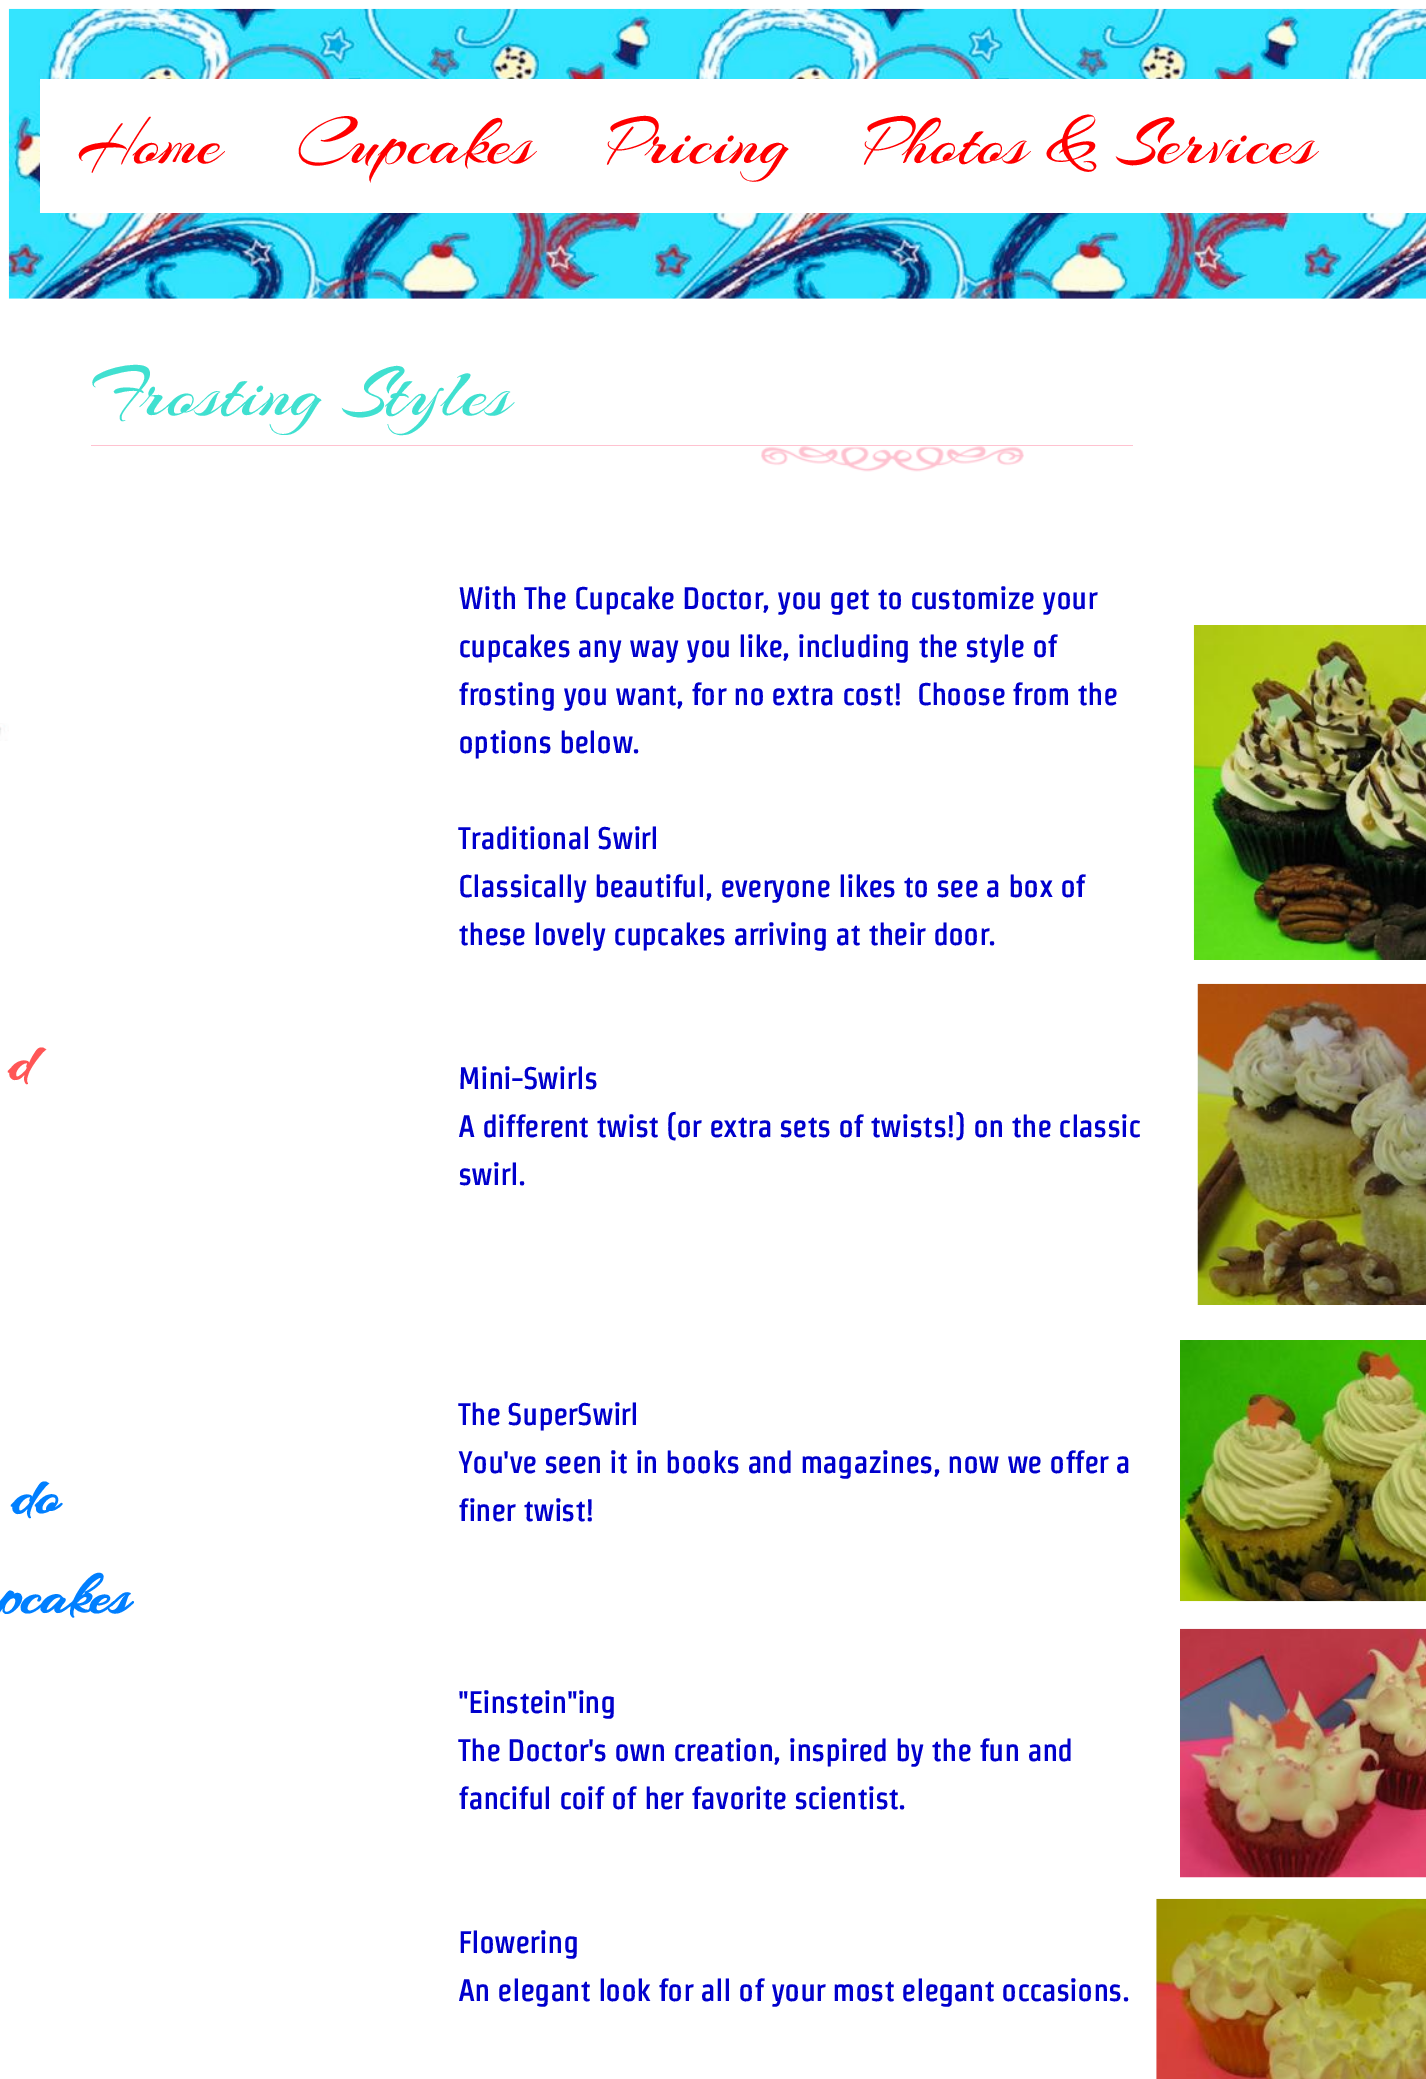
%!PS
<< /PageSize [1426 2079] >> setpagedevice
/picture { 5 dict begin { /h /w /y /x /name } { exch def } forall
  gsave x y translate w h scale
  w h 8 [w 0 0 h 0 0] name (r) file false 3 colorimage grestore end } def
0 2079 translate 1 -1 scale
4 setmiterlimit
1 setgray
0 0 1426 2079 rectfill
(img1.rgb) 8 8 1418 291 picture
40 79 1386 134 rectfill
/Arizonia-Regular [70 0 0 -70 0 0] selectfont
1 0 0 setrgbcolor
77 163 moveto (Home) show
297 163 moveto (Cupcakes) show
608 163 moveto (Pricing) show
865 163 moveto (Photos & Services) show
/Arizonia-Regular [75 0 0 -75 0 0] selectfont
0.251 0.878 0.816 setrgbcolor
91 415 moveto (Frosting Styles) show
1 0.761 0.816 setrgbcolor
91 445 1042 1 rectfill
(img2.rgb) 761 446 263 26 picture
(img3.rgb) 0 723 9 18 picture
/Strait-Bold [30 0 0 -30 0 0] selectfont
0 0 0.804 setrgbcolor
458 609 moveto (With The Cupcake Doctor, you get to customize your) show
458 657 moveto (cupcakes any way you like, including the style of) show
458 705 moveto (frosting you want, for no extra cost!  Choose from the) show
458 753 moveto (options below.) show
458 849 moveto (Traditional Swirl) show
458 897 moveto (Classically beautiful, everyone likes to see a box of) show
458 945 moveto (these lovely cupcakes arriving at their door.) show
458 1089 moveto (Mini-Swirls) show
458 1137 moveto (A different twist \(or extra sets of twists!\) on the classic) show
458 1185 moveto (swirl.) show
458 1425 moveto (The SuperSwirl) show
458 1473 moveto (You've seen it in books and magazines, now we offer a) show
458 1521 moveto (finer twist!) show
458 1713 moveto ("Einstein"ing) show
458 1761 moveto (The Doctor's own creation, inspired by the fun and) show
458 1809 moveto (fanciful coif of her favorite scientist.) show
458 1953 moveto (Flowering) show
458 2001 moveto (An elegant look for all of your most elegant occasions.) show
(img4.rgb) 1193 625 233 335 picture
/Arizonia-Bold [60 0 0 -60 0 0] selectfont
1 0.337 0.337 setrgbcolor
9 1079 moveto (d) show
(img5.rgb) 1197 983 229 322 picture
0 0.498 1 setrgbcolor
12 1513 moveto (do) show
-3 1613 moveto (pcakes) show
(img6.rgb) 1180 1340 246 262 picture
(img7.rgb) 1180 1628 246 250 picture
(img8.rgb) 1156 1898 270 181 picture
showpage
